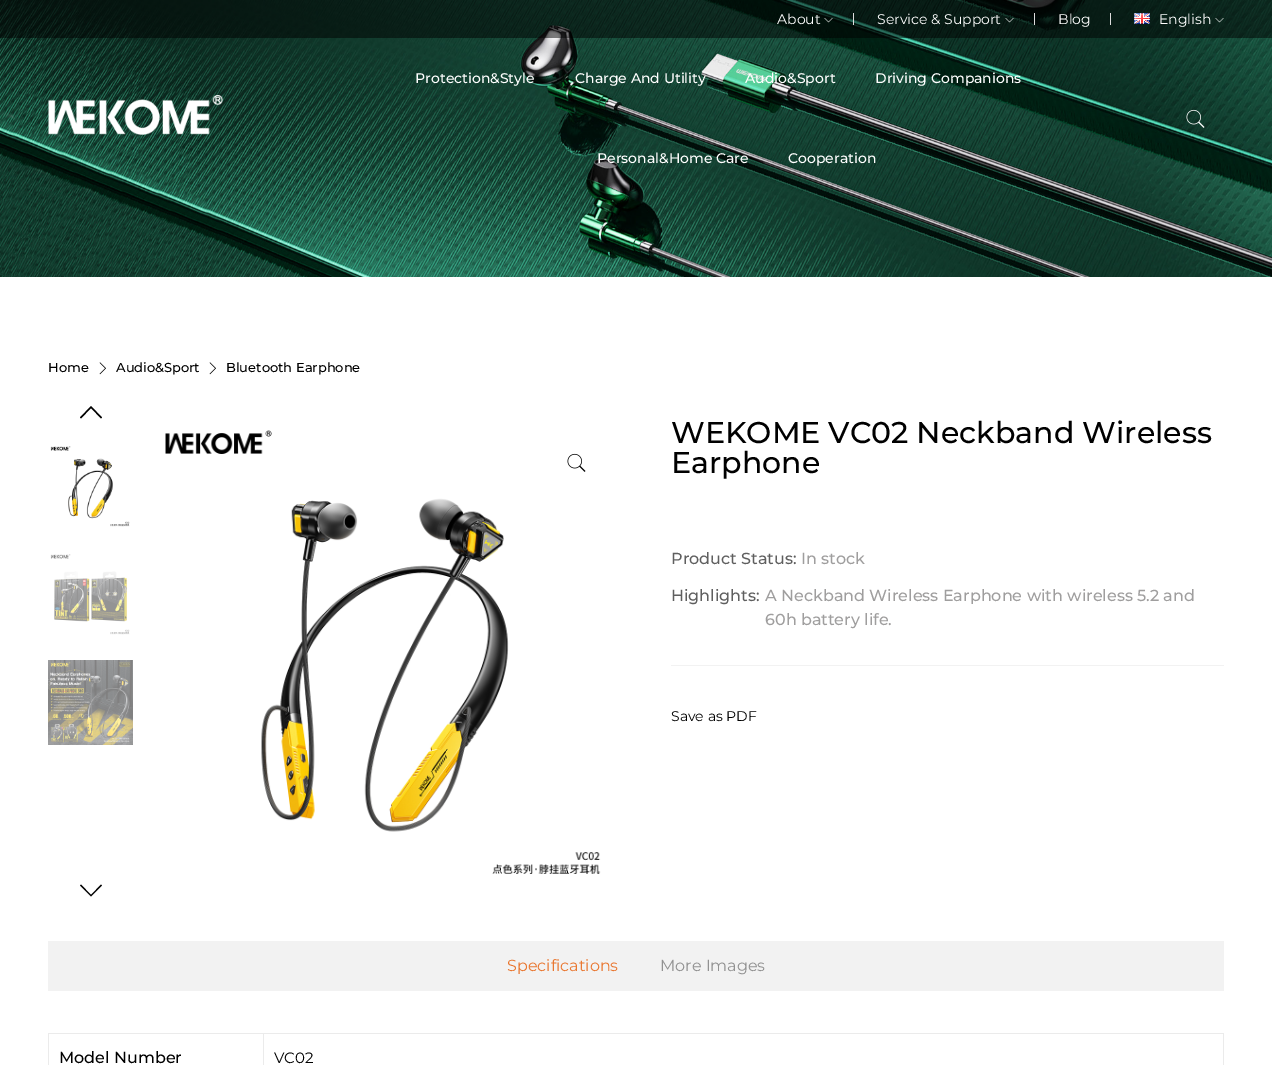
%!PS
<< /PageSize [1272 1065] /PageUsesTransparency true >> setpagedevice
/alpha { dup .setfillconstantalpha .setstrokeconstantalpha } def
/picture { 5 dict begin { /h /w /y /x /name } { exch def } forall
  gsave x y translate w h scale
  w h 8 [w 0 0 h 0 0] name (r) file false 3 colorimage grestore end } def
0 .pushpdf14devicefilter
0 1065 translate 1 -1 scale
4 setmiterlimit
1 setgray
0 0 1272 1065 rectfill
(img1.rgb) 0 0 1272 277 picture
0.5 alpha
0 setgray
0 0 1272 38 rectfill
/Montserrat-Regular [14 0 0 -14 0 0] selectfont
1 alpha
1 setgray
777 24 moveto (About) show
(img2.rgb) 824 18 9 5 picture
0.867 setgray
853 13 1 12 rectfill
1 setgray
877 24 moveto (Service & Support) show
(img3.rgb) 1005 18 9 5 picture
0.867 setgray
1034 13 1 12 rectfill
1 setgray
1058 24 moveto (Blog) show
0.867 setgray
1110 13 1 12 rectfill
(img4.rgb) 1134 13 16 11 picture
1 setgray
1159 24 moveto (English) show
(img5.rgb) 1215 18 9 5 picture
(img6.rgb) 48 95 175 40 picture
/Montserrat-Medium [14 0 0 -14 0 0] selectfont
415 83 moveto (Protection&Style) show
575 83 moveto (Charge And Utility) show
745 83 moveto (Audio&Sport) show
875 83 moveto (Driving Companions) show
597 163 moveto (Personal&Home Care) show
788 163 moveto (Cooperation) show
(img7.rgb) 1186 109 19 19 picture
/Montserrat-Medium [13 0 0 -13 0 0] selectfont
0 setgray
48 372 moveto (Home) show
(img8.rgb) 99 362 7 13 picture
116 372 moveto (Audio&Sport) show
(img8.rgb) 209 362 7 13 picture
226 372 moveto (Bluetooth Earphone) show
newpath 102 417.5 moveto 101 418.5 lineto 91 408 lineto 81 418.5 lineto 80 417.5 lineto 91 406 lineto closepath fill
(img9.rgb) 50 446 80 81 picture
(img10.rgb) 50 554 80 81 picture
(img11.rgb) 48 660 85 85 picture
newpath 102 885.5 moveto 91 896.5 lineto 80 885.5 lineto 81 884.5 lineto 91 895 lineto 101 884.5 lineto closepath fill
(img12.rgb) 165 430 436 444 picture
(img13.rgb) 567 453 19 19 picture
/Montserrat-Medium [30 0 0 -30 0 0] selectfont
671 443 moveto (WEKOME VC02 Neckband Wireless) show
671 473 moveto (Earphone) show
0.949 setgray
671 665 553 1 rectfill
/Montserrat-Medium [16 0 0 -16 0 0] selectfont
0.373 setgray
671 564 moveto (Product Status:) show
0.624 0.62 0.62 setrgbcolor
801 564 moveto (In stock) show
0.373 setgray
671 601 moveto (Highlights:) show
0.624 0.62 0.62 setrgbcolor
765 601 moveto (A Neckband Wireless Earphone with wireless 5.2 and) show
765 625 moveto (60h battery life.) show
/Montserrat-Regular [14 0 0 -14 0 0] selectfont
0 setgray
671 721 moveto (Save as PDF) show
0.949 setgray
48 941 1176 50 rectfill
/Montserrat-Regular [16 0 0 -16 0 0] selectfont
0.914 0.467 0.188 setrgbcolor
507 971 moveto (Specifications) show
0.569 setgray
660 971 moveto (More Images) show
0.922 setgray
48 1033 1176 1 rectfill
1223 1033 1 32 rectfill
48 1033 1 32 rectfill
263 1033 1 32 rectfill
/Montserrat-Medium [16 0 0 -16 0 0] selectfont
0 setgray
59 1063 moveto (Model Number) show
/Montserrat-Regular [15 0 0 -15 0 0] selectfont
274 1063 moveto (VC02) show
.poppdf14devicefilter showpage
